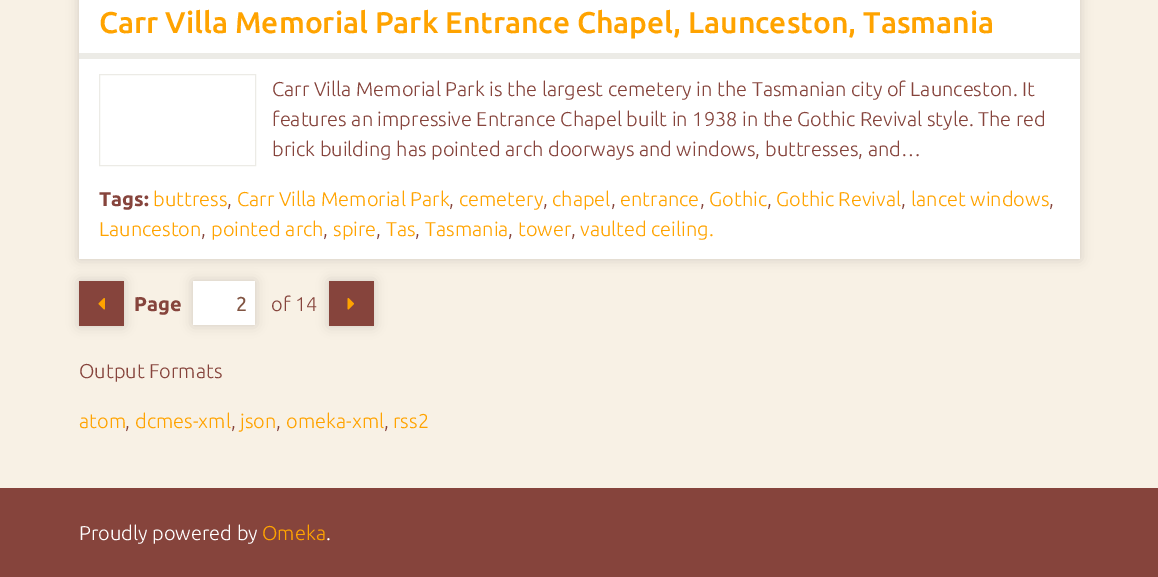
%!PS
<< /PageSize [1158 577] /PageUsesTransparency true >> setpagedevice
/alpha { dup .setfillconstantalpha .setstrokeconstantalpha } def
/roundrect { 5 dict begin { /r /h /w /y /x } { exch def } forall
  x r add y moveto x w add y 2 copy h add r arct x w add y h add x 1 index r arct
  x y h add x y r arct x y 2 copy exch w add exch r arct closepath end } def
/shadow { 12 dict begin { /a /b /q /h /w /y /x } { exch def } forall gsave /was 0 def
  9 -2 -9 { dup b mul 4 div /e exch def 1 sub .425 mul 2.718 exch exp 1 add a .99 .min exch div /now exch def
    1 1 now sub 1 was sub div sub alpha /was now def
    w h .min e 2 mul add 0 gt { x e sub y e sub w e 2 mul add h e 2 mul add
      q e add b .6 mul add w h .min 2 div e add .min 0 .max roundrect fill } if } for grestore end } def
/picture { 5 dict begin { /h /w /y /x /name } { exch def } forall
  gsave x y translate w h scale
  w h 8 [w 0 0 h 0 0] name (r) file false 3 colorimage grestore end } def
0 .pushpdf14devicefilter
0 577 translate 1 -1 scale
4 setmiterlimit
0.525 0.267 0.235 setrgbcolor
0 0 1158 577 rectfill
0.973 0.945 0.898 setrgbcolor
0 0 1158 488 rectfill
0 setgray
79 -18 1001 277 0 6 0.15 shadow
1 setgray
79 0 1001 259 rectfill
0.925 0.922 0.902 setrgbcolor
79 53 1001 6 rectfill
/Ubuntu-Medium [30 0 0 -30 0 0] selectfont
1 0.639 0 setrgbcolor
99 33 moveto (Carr Villa Memorial Park Entrance Chapel, Launceston, Tasmania) show
0.925 0.922 0.902 setrgbcolor
99.5 74.5 156 91 rectstroke
/Ubuntu-Light [20 0 0 -20 0 0] selectfont
0.525 0.267 0.235 setrgbcolor
272 96 moveto (Carr Villa Memorial Park is the largest cemetery in the Tasmanian city of Launceston. It) show
272 126 moveto (features an impressive Entrance Chapel built in 1938 in the Gothic Revival style. The red) show
272 156 moveto (brick building has pointed arch doorways and windows, buttresses, and…) show
/Ubuntu-Bold [20 0 0 -20 0 0] selectfont
99 206 moveto (Tags:) show
/Ubuntu-Light [20 0 0 -20 0 0] selectfont
1 0.639 0 setrgbcolor
153 206 moveto (buttress) show
0.525 0.267 0.235 setrgbcolor
227 206 moveto (,) show
1 0.639 0 setrgbcolor
237 206 moveto (Carr Villa Memorial Park) show
0.525 0.267 0.235 setrgbcolor
449 206 moveto (,) show
1 0.639 0 setrgbcolor
459 206 moveto (cemetery) show
0.525 0.267 0.235 setrgbcolor
543 206 moveto (,) show
1 0.639 0 setrgbcolor
552 206 moveto (chapel) show
0.525 0.267 0.235 setrgbcolor
611 206 moveto (,) show
1 0.639 0 setrgbcolor
620 206 moveto (entrance) show
0.525 0.267 0.235 setrgbcolor
700 206 moveto (,) show
1 0.639 0 setrgbcolor
709 206 moveto (Gothic) show
0.525 0.267 0.235 setrgbcolor
767 206 moveto (,) show
1 0.639 0 setrgbcolor
776 206 moveto (Gothic Revival) show
0.525 0.267 0.235 setrgbcolor
901 206 moveto (,) show
1 0.639 0 setrgbcolor
911 206 moveto (lancet windows) show
0.525 0.267 0.235 setrgbcolor
1049 206 moveto (,) show
1 0.639 0 setrgbcolor
99 236 moveto (Launceston) show
0.525 0.267 0.235 setrgbcolor
201 236 moveto (,) show
1 0.639 0 setrgbcolor
211 236 moveto (pointed arch) show
0.525 0.267 0.235 setrgbcolor
323 236 moveto (,) show
1 0.639 0 setrgbcolor
333 236 moveto (spire) show
0.525 0.267 0.235 setrgbcolor
376 236 moveto (,) show
1 0.639 0 setrgbcolor
386 236 moveto (Tas) show
0.525 0.267 0.235 setrgbcolor
415 236 moveto (,) show
1 0.639 0 setrgbcolor
425 236 moveto (Tasmania) show
0.525 0.267 0.235 setrgbcolor
508 236 moveto (,) show
1 0.639 0 setrgbcolor
518 236 moveto (tower) show
0.525 0.267 0.235 setrgbcolor
571 236 moveto (,) show
1 0.639 0 setrgbcolor
580 236 moveto (vaulted ceiling.) show
0 setgray
79 281 45 45 0 6 0.15 shadow
0.525 0.267 0.235 setrgbcolor
79 281 45 45 rectfill
(img1.rgb) 98 298 7 12 picture
/Ubuntu-Bold [20 0 0 -20 0 0] selectfont
134 311 moveto (Page) show
0 setgray
193 281 62 44 0 6 0.15 shadow
1 setgray
193 281 62 44 rectfill
/Ubuntu-Regular [20 0 0 -20 0 0] selectfont
0.506 0.329 0.259 setrgbcolor
236 311 moveto (2) show
/Ubuntu-Light [20 0 0 -20 0 0] selectfont
0.525 0.267 0.235 setrgbcolor
271 311 moveto (of 14) show
0 setgray
329 281 45 45 0 6 0.15 shadow
0.525 0.267 0.235 setrgbcolor
329 281 45 45 rectfill
(img2.rgb) 347 298 7 12 picture
79 378 moveto (Output Formats) show
1 0.639 0 setrgbcolor
79 428 moveto (atom) show
0.525 0.267 0.235 setrgbcolor
125 428 moveto (,) show
1 0.639 0 setrgbcolor
135 428 moveto (dcmes-xml) show
0.525 0.267 0.235 setrgbcolor
231 428 moveto (,) show
1 0.639 0 setrgbcolor
240 428 moveto (json) show
0.525 0.267 0.235 setrgbcolor
276 428 moveto (,) show
1 0.639 0 setrgbcolor
286 428 moveto (omeka-xml) show
0.525 0.267 0.235 setrgbcolor
384 428 moveto (,) show
1 0.639 0 setrgbcolor
393 428 moveto (rss2) show
1 setgray
79 540 moveto (Proudly powered by) show
1 0.639 0 setrgbcolor
262 540 moveto (Omeka) show
1 setgray
326 540 moveto (.) show
.poppdf14devicefilter showpage
